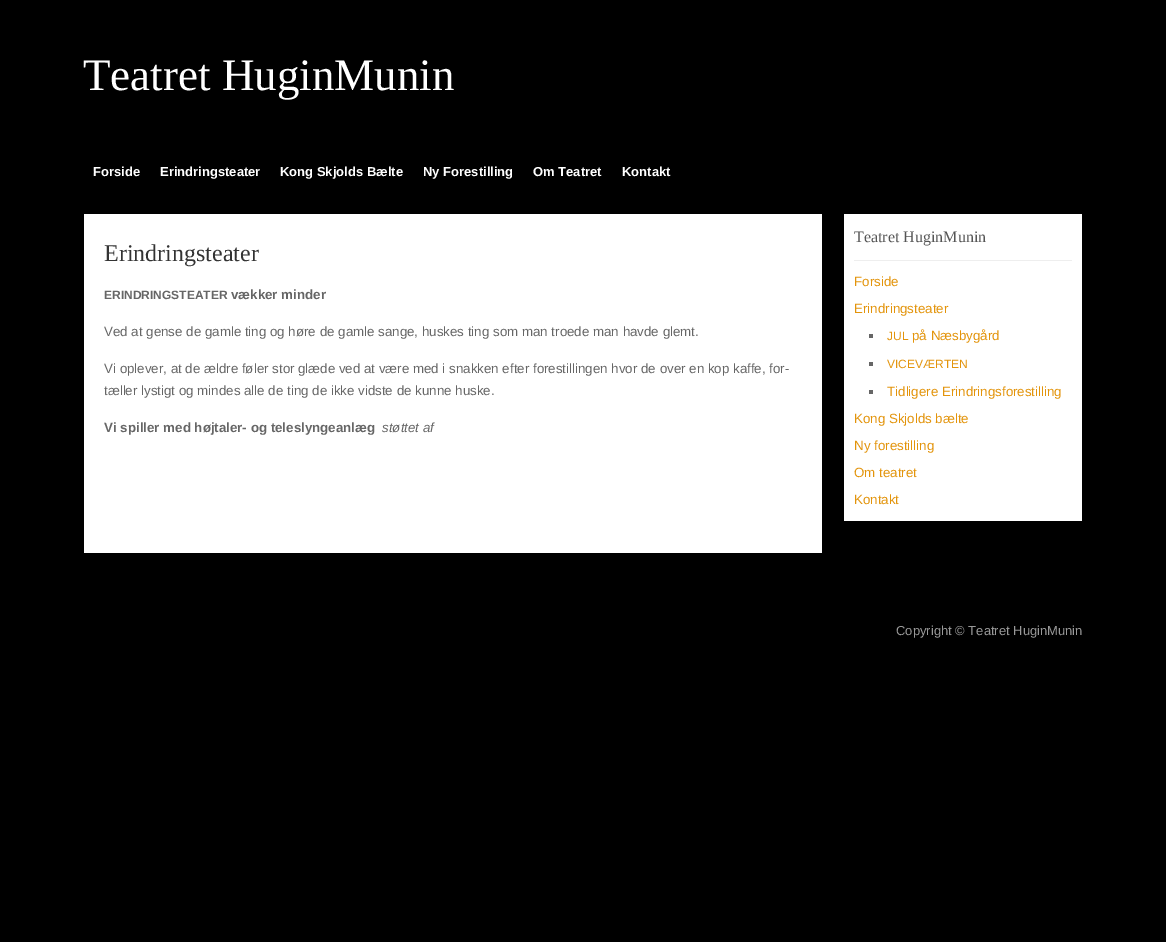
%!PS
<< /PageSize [1166 942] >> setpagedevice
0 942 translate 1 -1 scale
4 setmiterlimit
0 setgray
0 0 1166 942 rectfill
/LiberationSerif-Regular [45 0 0 -45 0 0] selectfont
1 setgray
83 90 moveto (Teatret HuginMunin) show
/LiberationSans-Bold [13 0 0 -13 0 0] selectfont
93 176 moveto (Forside) show
160 176 moveto (Erindringsteater) show
280 176 moveto (Kong Skjolds Bælte) show
423 176 moveto (Ny Forestilling) show
533 176 moveto (Om Teatret) show
622 176 moveto (Kontakt) show
84 214 738 339 rectfill
/LiberationSerif-Regular [24 0 0 -24 0 0] selectfont
0.2 setgray
104 261 moveto (Erindringsteater) show
/LiberationSans-Bold [12 0 0 -12 0 0] selectfont
0.4 setgray
104 299 moveto (ERINDRINGSTEATER) show
/LiberationSans-Bold [13.33 0 0 -13.33 0 0] selectfont
231 299 moveto (vækker minder) show
/LiberationSans-Regular [13.33 0 0 -13.33 0 0] selectfont
104 336 moveto (Ved at gense de gamle ting og høre de gamle sange, huskes ting som man troede man havde glemt.) show
104 373 moveto (Vi oplever, at de ældre føler stor glæde ved at være med i snakken efter forestillingen hvor de over en kop kaffe, for-) show
104 395 moveto (tæller lystigt og mindes alle de ting de ikke vidste de kunne huske.) show
/LiberationSans-Bold [13.33 0 0 -13.33 0 0] selectfont
104 432 moveto (Vi spiller med højtaler- og teleslyngeanlæg) show
/LiberationSans-Italic [13.33 0 0 -13.33 0 0] selectfont
382 432 moveto (støttet af) show
1 setgray
844 214 238 307 rectfill
0.933 setgray
854 260 218 1 rectfill
/LiberationSerif-Regular [16 0 0 -16 0 0] selectfont
0.333 setgray
854 242 moveto (Teatret HuginMunin) show
/LiberationSans-Regular [13.33 0 0 -13.33 0 0] selectfont
0.89 0.58 0.043 setrgbcolor
854 286 moveto (Forside) show
854 313 moveto (Erindringsteater) show
0.4 setgray
869 334 4 4 rectfill
/LiberationSans-Regular [12 0 0 -12 0 0] selectfont
0.89 0.58 0.043 setrgbcolor
887 340 moveto (JUL) show
/LiberationSans-Regular [13.33 0 0 -13.33 0 0] selectfont
912 340 moveto (på Næsbygård) show
0.4 setgray
869 362 4 4 rectfill
/LiberationSans-Regular [12 0 0 -12 0 0] selectfont
0.89 0.58 0.043 setrgbcolor
887 368 moveto (VICEVÆRTEN) show
0.4 setgray
869 390 4 4 rectfill
/LiberationSans-Regular [13.33 0 0 -13.33 0 0] selectfont
0.89 0.58 0.043 setrgbcolor
887 396 moveto (Tidligere Erindringsforestilling) show
854 423 moveto (Kong Skjolds bælte) show
854 450 moveto (Ny forestilling) show
854 477 moveto (Om teatret) show
854 504 moveto (Kontakt) show
/LiberationSans-Regular [13 0 0 -13 0 0] selectfont
0.6 setgray
896 635 moveto (Copyright © Teatret HuginMunin) show
showpage
